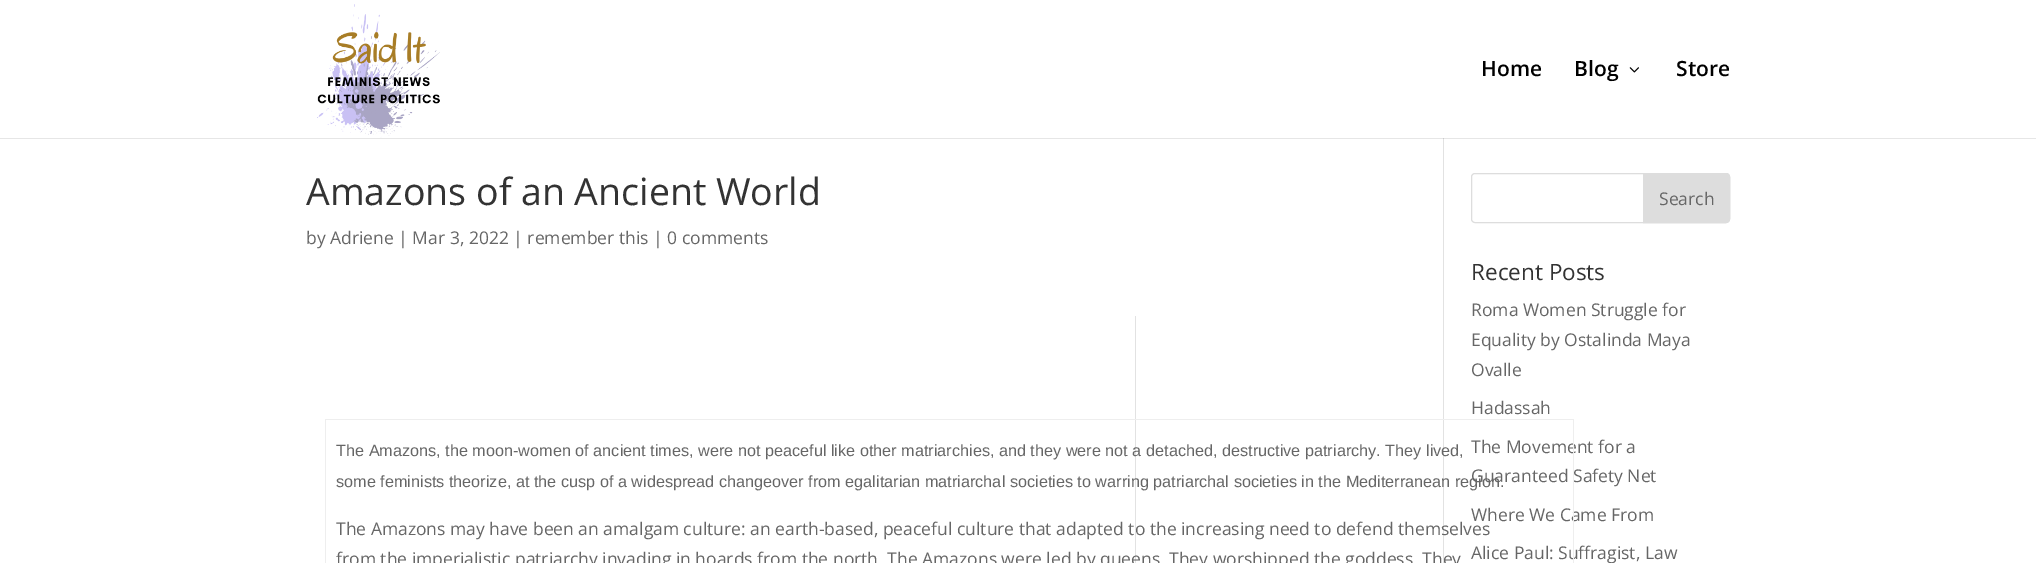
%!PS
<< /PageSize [2036 563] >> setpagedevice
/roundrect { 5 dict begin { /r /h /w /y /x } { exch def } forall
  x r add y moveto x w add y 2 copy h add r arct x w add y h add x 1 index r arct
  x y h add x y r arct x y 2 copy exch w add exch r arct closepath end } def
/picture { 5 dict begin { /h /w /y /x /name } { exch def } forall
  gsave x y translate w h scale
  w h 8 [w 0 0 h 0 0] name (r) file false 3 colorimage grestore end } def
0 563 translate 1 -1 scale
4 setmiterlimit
1 setgray
0 0 2036 563 rectfill
0.902 setgray
0 138 2036 1 rectfill
(img1.rgb) 317 4 123 134 picture
/OpenSans-SemiBold [21 0 0 -21 0 0] selectfont
0 setgray
1481 76 moveto (Home) show
1574 76 moveto (Blog) show
(img2.rgb) 1629 67 10 6 picture
1676 76 moveto (Store) show
0.886 setgray
1443 139 1 424 rectfill
0.796 setgray
1443 138 1 1 rectfill
/OpenSans-Regular [37.5 0 0 -37.5 0 0] selectfont
0.2 setgray
306 205 moveto (Amazons of an Ancient World) show
/OpenSans-Regular [17.5 0 0 -17.5 0 0] selectfont
0.4 setgray
306 244 moveto (by Adriene | Mar 3, 2022 | remember this | 0 comments) show
0.886 setgray
1135 316 1 247 rectfill
0.933 setgray
325 419 1249 1 rectfill
0.4 setgray
1471 453 moveto (The Movement for a) show
1471 482 moveto (Guaranteed Safety Net) show
1471 521 moveto (Where We Came From) show
1471 559 moveto (Alice Paul: Suffragist, Law) show
0.933 setgray
1573 419 1 144 rectfill
325 419 1 144 rectfill
/LiberationSans-Regular [16.25 0 0 -16.25 0 0] selectfont
0.4 setgray
336 456 moveto (The Amazons, the moon-women of ancient times, were not peaceful like other matriarchies, and they were not a detached, destructive patriarchy. They lived,) show
336 487 moveto (some feminists theorize, at the cusp of a widespread changeover from egalitarian matriarchal societies to warring patriarchal societies in the Mediterranean region.) show
/OpenSans-Regular [17.5 0 0 -17.5 0 0] selectfont
336 535 moveto (The Amazons may have been an amalgam culture: an earth-based, peaceful culture that adapted to the increasing need to defend themselves) show
336 565 moveto (from the imperialistic patriarchy invading in hoards from the north. The Amazons were led by queens. They worshipped the goddess. They) show
0.867 setgray
1471.5 173.5 258 49 3.5 roundrect stroke
newpath 1643.5 173.5 moveto 1726 173.5 lineto 1728 173.5 1729.5 175 1729.5 177 curveto 1729.5 219 lineto 1729.5 221 1728 222.5 1726 222.5 curveto 1643.5 222.5 lineto closepath gsave fill grestore
stroke
0.4 setgray
1659 205 moveto (Search) show
/OpenSans-Regular [22.5 0 0 -22.5 0 0] selectfont
0.2 setgray
1471 280 moveto (Recent Posts) show
/OpenSans-Regular [17.5 0 0 -17.5 0 0] selectfont
0.4 setgray
1471 316 moveto (Roma Women Struggle for) show
1471 346 moveto (Equality by Ostalinda Maya) show
1471 376 moveto (Ovalle) show
1471 414 moveto (Hadassah) show
showpage
